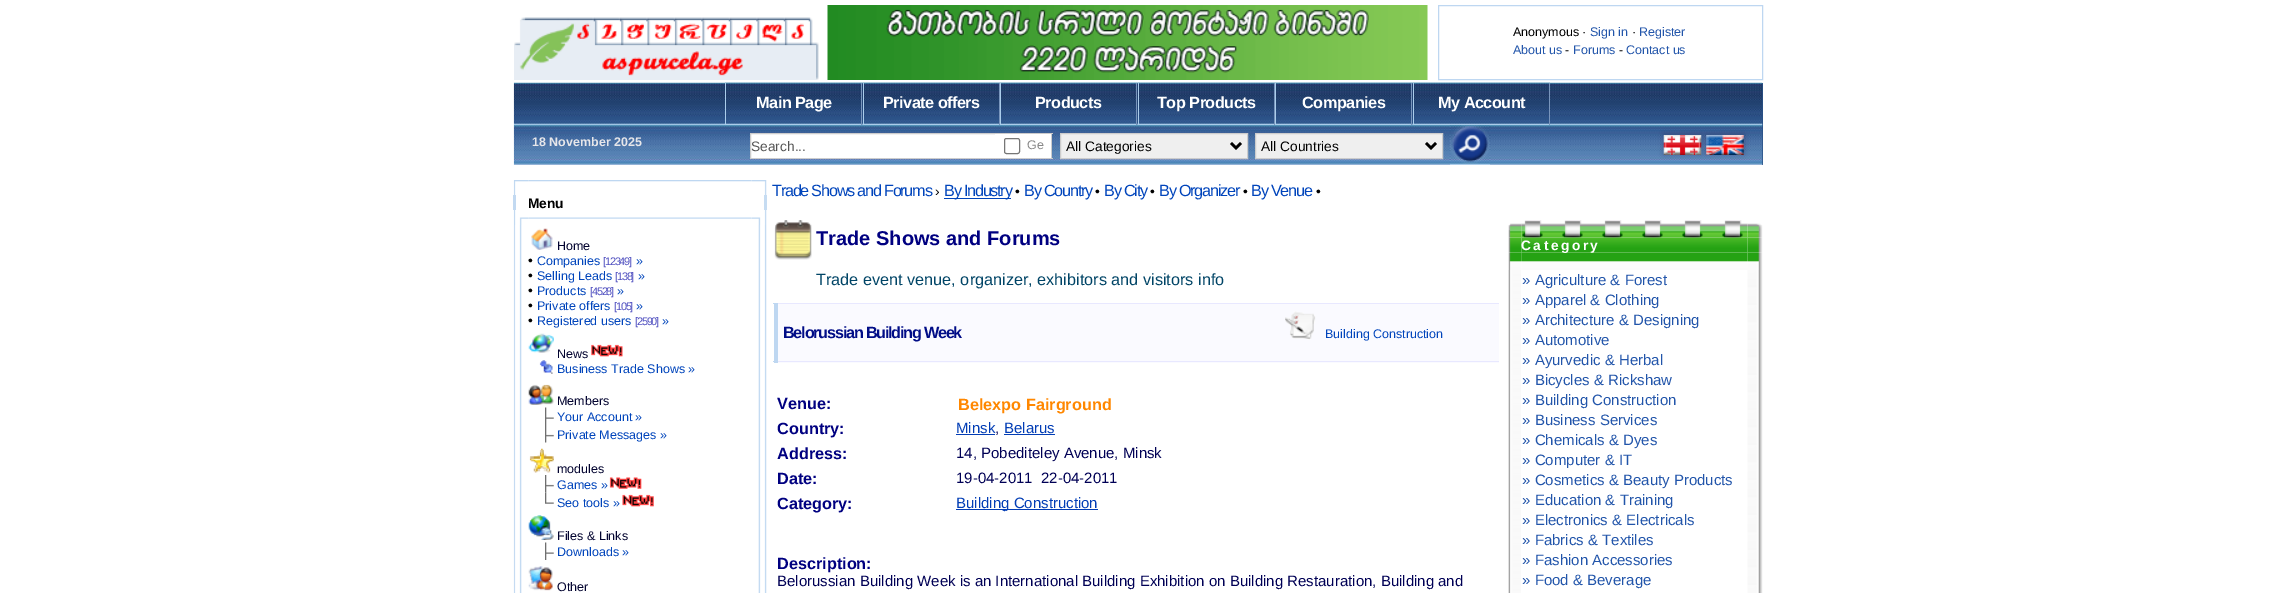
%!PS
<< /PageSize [2274 593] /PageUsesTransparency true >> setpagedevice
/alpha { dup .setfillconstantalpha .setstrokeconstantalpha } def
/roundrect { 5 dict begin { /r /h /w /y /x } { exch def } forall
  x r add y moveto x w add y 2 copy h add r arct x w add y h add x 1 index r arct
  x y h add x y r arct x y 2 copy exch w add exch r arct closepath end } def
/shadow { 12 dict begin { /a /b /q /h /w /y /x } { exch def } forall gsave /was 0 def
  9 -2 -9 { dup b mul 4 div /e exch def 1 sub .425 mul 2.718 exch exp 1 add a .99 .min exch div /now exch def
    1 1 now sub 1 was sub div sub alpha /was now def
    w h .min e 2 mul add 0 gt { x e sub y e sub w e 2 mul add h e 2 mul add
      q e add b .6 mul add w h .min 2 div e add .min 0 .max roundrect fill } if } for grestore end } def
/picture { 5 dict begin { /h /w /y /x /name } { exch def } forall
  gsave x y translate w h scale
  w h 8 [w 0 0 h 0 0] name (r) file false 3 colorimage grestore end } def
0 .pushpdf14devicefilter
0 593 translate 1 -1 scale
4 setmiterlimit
1 setgray
0 0 2274 593 rectfill
(img1.rgb) 514 17 305 63 picture
(img2.rgb) 827 5 601 75 picture
0.745 0.843 0.945 setrgbcolor
1438.5 5.5 324 74 rectstroke
/LiberationSans-Regular [12.5 0 0 -12.5 0 0] selectfont
0 setgray
1513 36 moveto (Anonymous ·) show
0.133 0.333 0.667 setrgbcolor
1590 36 moveto (Sign in) show
0 setgray
1632 36 moveto (·) show
0.133 0.333 0.667 setrgbcolor
1639 36 moveto (Register) show
1513 54 moveto (About us) show
0 setgray
1565 54 moveto (-) show
0.133 0.333 0.667 setrgbcolor
1573 54 moveto (Forums) show
0 setgray
1619 54 moveto (-) show
0.133 0.333 0.667 setrgbcolor
1626 54 moveto (Contact us) show
0.157 0.314 0.525 setrgbcolor
1762 83 1 82 rectfill
(img12.rgb) 513 82 1250 83 picture
(img3.rgb) 725 82 138 43 picture
0.475 0.584 0.737 setrgbcolor
861 83 1 42 rectfill
0.671 0.804 0.922 setrgbcolor
725 83 1 42 rectfill
/LiberationSans-Bold [16.25 0 0 -16.25 0 0] selectfont
1 setgray
756 108 moveto -0.5 0 (Main Page) ashow
(img4.rgb) 862 82 138 43 picture
0.475 0.584 0.737 setrgbcolor
999 83 1 42 rectfill
0.671 0.804 0.922 setrgbcolor
863 83 1 42 rectfill
1 setgray
883 108 moveto -0.5 0 (Private offers) ashow
(img5.rgb) 1000 82 138 43 picture
0.475 0.584 0.737 setrgbcolor
1136 83 1 42 rectfill
0.671 0.804 0.922 setrgbcolor
1000 83 1 42 rectfill
1 setgray
1035 108 moveto -0.5 0 (Products) ashow
(img6.rgb) 1137 82 138 43 picture
0.475 0.584 0.737 setrgbcolor
1274 83 1 42 rectfill
0.671 0.804 0.922 setrgbcolor
1138 83 1 42 rectfill
1 setgray
1157 108 moveto -0.5 0 (Top Products) ashow
(img7.rgb) 1275 82 138 43 picture
0.475 0.584 0.737 setrgbcolor
1411 83 1 42 rectfill
0.671 0.804 0.922 setrgbcolor
1275 83 1 42 rectfill
1 setgray
1302 108 moveto -0.5 0 (Companies) ashow
(img8.rgb) 1412 82 138 43 picture
0.475 0.584 0.737 setrgbcolor
1549 83 1 42 rectfill
0.671 0.804 0.922 setrgbcolor
1413 83 1 42 rectfill
1 setgray
1438 108 moveto -0.5 0 (My Account) ashow
/LiberationSans-Bold [12.5 0 0 -12.5 0 0] selectfont
0.906 0.906 0.918 setrgbcolor
532 146 moveto (18 November 2025) show
1 setgray
751 134 300 24 rectfill
0.8 setgray
995 133 58 1 rectfill
1051 133 1 26 rectfill
995 158 58 1 rectfill
gsave
750 133 245 26 rectclip
750.5 133.5 247 25 rectstroke
grestore
/LiberationSans-Regular [13.75 0 0 -13.75 0 0] selectfont
0.333 setgray
751 151 moveto (Search...) show
0.463 setgray
1004.5 138.5 15 15 2 roundrect stroke
/LiberationSans-Regular [12.5 0 0 -12.5 0 0] selectfont
0.533 setgray
1027 149 moveto (Ge) show
0.937 setgray
newpath 1060.5 133.5 moveto 1247.5 133.5 lineto 1247.5 158.5 lineto 1060.5 158.5 lineto closepath gsave fill grestore
0.8 setgray
stroke
0 setgray
2.5 setlinewidth
newpath 1231 143 moveto 1236 148 lineto 1241 143 lineto stroke
/LiberationSans-Regular [13.75 0 0 -13.75 0 0] selectfont
1066 151 moveto (All Categories) show
0.937 setgray
newpath 1255.5 133.5 moveto 1442.5 133.5 lineto 1442.5 158.5 lineto 1255.5 158.5 lineto closepath gsave fill grestore
0.8 setgray
1 setlinewidth
stroke
0 setgray
2.5 setlinewidth
newpath 1426 143 moveto 1431 148 lineto 1436 143 lineto stroke
1261 151 moveto (All Countries) show
(img9.rgb) 1450 125 40 40 picture
0.196 0.196 0.392 setrgbcolor
1706 134 38 20 0 3 0.5 shadow
(img11.rgb) 1706 135 38 20 picture
1664 134 37 20 0 3 0.5 shadow
(img10.rgb) 1663 135 39 20 picture
(img14.rgb) 528 180 224 2 picture
(img13.rgb) 513 180 16 15 picture
(img15.rgb) 751 180 16 15 picture
0.761 0.851 0.945 setrgbcolor
513 195 3 15 rectfill
/LiberationSans-Bold [13.75 0 0 -13.75 0 0] selectfont
0 setgray
528 208 moveto (Menu) show
0.776 0.863 0.949 setrgbcolor
764 195 3 15 rectfill
(img17.rgb) 528 217 224 2 picture
(img16.rgb) 513 210 16 15 picture
(img18.rgb) 751 210 16 15 picture
(img19.rgb) 513 225 9 368 picture
(img20.rgb) 531 228 22 22 picture
/LiberationSans-Regular [12.5 0 0 -12.5 0 0] selectfont
0.008 0.012 0.184 setrgbcolor
557 250 moveto (Home) show
/LiberationSans-Regular [13.75 0 0 -13.75 0 0] selectfont
0 setgray
528 265 moveto (•) show
/LiberationSans-Regular [12.5 0 0 -12.5 0 0] selectfont
0 0.267 0.733 setrgbcolor
537 265 moveto (Companies) show
/LiberationSans-Regular [11 0 0 -11 0 0] selectfont
0.314 0.314 0.753 setrgbcolor
603 265 moveto -1.25 0 ([12349]) ashow
/LiberationSans-Regular [12.5 0 0 -12.5 0 0] selectfont
0 0.267 0.733 setrgbcolor
636 265 moveto (») show
/LiberationSans-Regular [13.75 0 0 -13.75 0 0] selectfont
0 setgray
528 280 moveto (•) show
/LiberationSans-Regular [12.5 0 0 -12.5 0 0] selectfont
0 0.267 0.733 setrgbcolor
537 280 moveto (Selling Leads) show
/LiberationSans-Regular [11 0 0 -11 0 0] selectfont
0.314 0.314 0.753 setrgbcolor
615 280 moveto -1.25 0 ([138]) ashow
/LiberationSans-Regular [12.5 0 0 -12.5 0 0] selectfont
0 0.267 0.733 setrgbcolor
638 280 moveto (») show
/LiberationSans-Regular [13.75 0 0 -13.75 0 0] selectfont
0 setgray
528 295 moveto (•) show
/LiberationSans-Regular [12.5 0 0 -12.5 0 0] selectfont
0 0.267 0.733 setrgbcolor
537 295 moveto (Products) show
/LiberationSans-Regular [11 0 0 -11 0 0] selectfont
0.314 0.314 0.753 setrgbcolor
590 295 moveto -1.25 0 ([4528]) ashow
/LiberationSans-Regular [12.5 0 0 -12.5 0 0] selectfont
0 0.267 0.733 setrgbcolor
617 295 moveto (») show
/LiberationSans-Regular [13.75 0 0 -13.75 0 0] selectfont
0 setgray
528 310 moveto (•) show
/LiberationSans-Regular [12.5 0 0 -12.5 0 0] selectfont
0 0.267 0.733 setrgbcolor
537 310 moveto (Private offers) show
/LiberationSans-Regular [11 0 0 -11 0 0] selectfont
0.314 0.314 0.753 setrgbcolor
614 310 moveto -1.25 0 ([105]) ashow
/LiberationSans-Regular [12.5 0 0 -12.5 0 0] selectfont
0 0.267 0.733 setrgbcolor
636 310 moveto (») show
/LiberationSans-Regular [13.75 0 0 -13.75 0 0] selectfont
0 setgray
528 325 moveto (•) show
/LiberationSans-Regular [12.5 0 0 -12.5 0 0] selectfont
0 0.267 0.733 setrgbcolor
537 325 moveto (Registered users) show
/LiberationSans-Regular [11 0 0 -11 0 0] selectfont
0.314 0.314 0.753 setrgbcolor
635 325 moveto -1.25 0 ([2590]) ashow
/LiberationSans-Regular [12.5 0 0 -12.5 0 0] selectfont
0 0.267 0.733 setrgbcolor
662 325 moveto (») show
(img21.rgb) 528 333 26 20 picture
0.008 0.012 0.184 setrgbcolor
557 358 moveto (News) show
(img22.rgb) 591 344 32 13 picture
(img23.rgb) 539 360 14 14 picture
0 0.267 0.733 setrgbcolor
557 373 moveto (Business Trade Shows ») show
(img24.rgb) 528 384 26 21 picture
0.008 0.012 0.184 setrgbcolor
557 405 moveto (Members) show
(img25.rgb) 545 407 9 18 picture
0 0.267 0.733 setrgbcolor
557 421 moveto (Your Account ») show
(img26.rgb) 545 425 9 18 picture
557 439 moveto (Private Messages ») show
(img27.rgb) 529 448 25 25 picture
0.008 0.012 0.184 setrgbcolor
557 473 moveto (modules) show
(img26.rgb) 545 475 9 18 picture
0 0.267 0.733 setrgbcolor
557 489 moveto (Games ») show
(img28.rgb) 609 477 33 12 picture
(img29.rgb) 545 492 9 12 picture
557 507 moveto (Seo tools ») show
(img30.rgb) 622 494 32 13 picture
(img31.rgb) 528 515 26 25 picture
0.008 0.012 0.184 setrgbcolor
557 540 moveto (Files & Links) show
(img25.rgb) 545 542 9 18 picture
0 0.267 0.733 setrgbcolor
557 556 moveto (Downloads ») show
(img32.rgb) 528 566 25 25 picture
0.008 0.012 0.184 setrgbcolor
557 591 moveto (Other) show
(img33.rgb) 758 225 9 368 picture
/LiberationSans-Regular [16.25 0 0 -16.25 0 0] selectfont
0 0.267 0.733 setrgbcolor
772 196 moveto -1.25 0 (Trade Shows and Forums) ashow
/LiberationSans-Regular [13.75 0 0 -13.75 0 0] selectfont
0 setgray
935 196 moveto (›) show
0 0.267 0.733 setrgbcolor
944 198 67 1 rectfill
/LiberationSans-Regular [16.25 0 0 -16.25 0 0] selectfont
944 196 moveto -1.25 0 (By Industry) ashow
/LiberationSans-Regular [13.75 0 0 -13.75 0 0] selectfont
0 setgray
1015 196 moveto (•) show
/LiberationSans-Regular [16.25 0 0 -16.25 0 0] selectfont
0 0.267 0.733 setrgbcolor
1024 196 moveto -1.25 0 (By Country) ashow
/LiberationSans-Regular [13.75 0 0 -13.75 0 0] selectfont
0 setgray
1095 196 moveto (•) show
/LiberationSans-Regular [16.25 0 0 -16.25 0 0] selectfont
0 0.267 0.733 setrgbcolor
1104 196 moveto -1.25 0 (By City) ashow
/LiberationSans-Regular [13.75 0 0 -13.75 0 0] selectfont
0 setgray
1150 196 moveto (•) show
/LiberationSans-Regular [16.25 0 0 -16.25 0 0] selectfont
0 0.267 0.733 setrgbcolor
1159 196 moveto -1.25 0 (By Organizer) ashow
/LiberationSans-Regular [13.75 0 0 -13.75 0 0] selectfont
0 setgray
1243 196 moveto (•) show
/LiberationSans-Regular [16.25 0 0 -16.25 0 0] selectfont
0 0.267 0.733 setrgbcolor
1251 196 moveto -1.25 0 (By Venue) ashow
/LiberationSans-Regular [13.75 0 0 -13.75 0 0] selectfont
0 setgray
1316 196 moveto (•) show
(img34.rgb) 774 220 38 40 picture
/LiberationSans-Bold [20 0 0 -20 0 0] selectfont
0 0 0.502 setrgbcolor
816 245 moveto (Trade Shows and Forums) show
/LiberationSans-Regular [16.25 0 0 -16.25 0 0] selectfont
0 0.267 0.4 setrgbcolor
816 285 moveto (Trade event venue, organizer, exhibitors and visitors info) show
0.745 0.843 0.945 setrgbcolor
774 304 4 59 rectfill
0.91 0.91 1 setrgbcolor
776 303 723 1 rectfill
0.745 0.843 0.945 setrgbcolor
773 303 5 1 rectfill
0.98 0.98 1 setrgbcolor
778 304 721 59 rectfill
0.91 0.91 1 setrgbcolor
776 361 723 1 rectfill
0.745 0.843 0.945 setrgbcolor
773 361 5 1 rectfill
/LiberationSans-Bold [16.25 0 0 -16.25 0 0] selectfont
0.004 0.051 0.529 setrgbcolor
783 338 moveto -1.25 0 (Belorussian Building Week) ashow
(img35.rgb) 1285 311 31 29 picture
/LiberationSans-Regular [12.5 0 0 -12.5 0 0] selectfont
0 0.267 0.733 setrgbcolor
1325 338 moveto (Building Construction) show
/LiberationSans-Bold [16.25 0 0 -16.25 0 0] selectfont
0 0 0.502 setrgbcolor
777 409 moveto (Venue:) show
1 0.529 0 setrgbcolor
958 410 moveto (Belexpo Fairground) show
0 0 0.502 setrgbcolor
777 434 moveto (Country:) show
/LiberationSans-Regular [15 0 0 -15 0 0] selectfont
0.008 0.239 0.71 setrgbcolor
956 433 moveto (Minsk) show
956 434 39 1 rectfill
0 0 0.333 setrgbcolor
995 433 moveto (,) show
0.008 0.239 0.71 setrgbcolor
1004 433 moveto (Belarus) show
1004 434 51 1 rectfill
/LiberationSans-Bold [16.25 0 0 -16.25 0 0] selectfont
0 0 0.502 setrgbcolor
777 459 moveto (Address:) show
/LiberationSans-Regular [15 0 0 -15 0 0] selectfont
0 0 0.333 setrgbcolor
956 458 moveto (14, Pobediteley Avenue, Minsk) show
/LiberationSans-Bold [16.25 0 0 -16.25 0 0] selectfont
0 0 0.502 setrgbcolor
777 484 moveto (Date:) show
/LiberationSans-Regular [15 0 0 -15 0 0] selectfont
0 0 0.333 setrgbcolor
956 483 moveto (19-04-2011  22-04-2011) show
/LiberationSans-Bold [16.25 0 0 -16.25 0 0] selectfont
0 0 0.502 setrgbcolor
777 509 moveto (Category:) show
0.008 0.239 0.71 setrgbcolor
956 509 142 1 rectfill
/LiberationSans-Regular [15 0 0 -15 0 0] selectfont
956 508 moveto (Building Construction) show
/LiberationSans-Bold [16.25 0 0 -16.25 0 0] selectfont
0 0 0.502 setrgbcolor
777 569 moveto (Description:) show
/LiberationSans-Regular [15 0 0 -15 0 0] selectfont
0 0 0.333 setrgbcolor
777 586 moveto (Belorussian Building Week is an International Building Exhibition on Building Restauration, Building and) show
(img37.rgb) 1521 220 227 18 picture
(img39.rgb) 1508 237 14 16 picture
1 setgray
1521 238 1 15 rectfill
(img40.rgb) 1521 237 227 16 picture
(img36.rgb) 1508 223 14 15 picture
(img41.rgb) 1747 237 16 16 picture
(img38.rgb) 1747 223 16 15 picture
(img43.rgb) 1521 252 227 18 picture
/LiberationSans-Bold [13.75 0 0 -13.75 0 0] selectfont
1521 250 moveto 2.5 0 (Category) ashow
(img42.rgb) 1508 252 14 18 picture
(img44.rgb) 1747 252 16 18 picture
(img45.rgb) 1508 270 13 323 picture
/LiberationSans-Regular [15 0 0 -15 0 0] selectfont
0.133 0.333 0.667 setrgbcolor
1522 285 moveto (» Agriculture & Forest) show
1522 305 moveto (» Apparel & Clothing) show
1522 325 moveto (» Architecture & Designing) show
1522 345 moveto (» Automotive) show
1522 365 moveto (» Ayurvedic & Herbal) show
1522 385 moveto (» Bicycles & Rickshaw) show
1522 405 moveto (» Building Construction) show
1522 425 moveto (» Business Services) show
1522 445 moveto (» Chemicals & Dyes) show
1522 465 moveto (» Computer & IT) show
1522 485 moveto (» Cosmetics & Beauty Products) show
1522 505 moveto (» Education & Training) show
1522 525 moveto (» Electronics & Electricals) show
1522 545 moveto (» Fabrics & Textiles) show
1522 565 moveto (» Fashion Accessories) show
1522 585 moveto (» Food & Beverage) show
(img46.rgb) 1747 270 16 323 picture
.poppdf14devicefilter showpage
